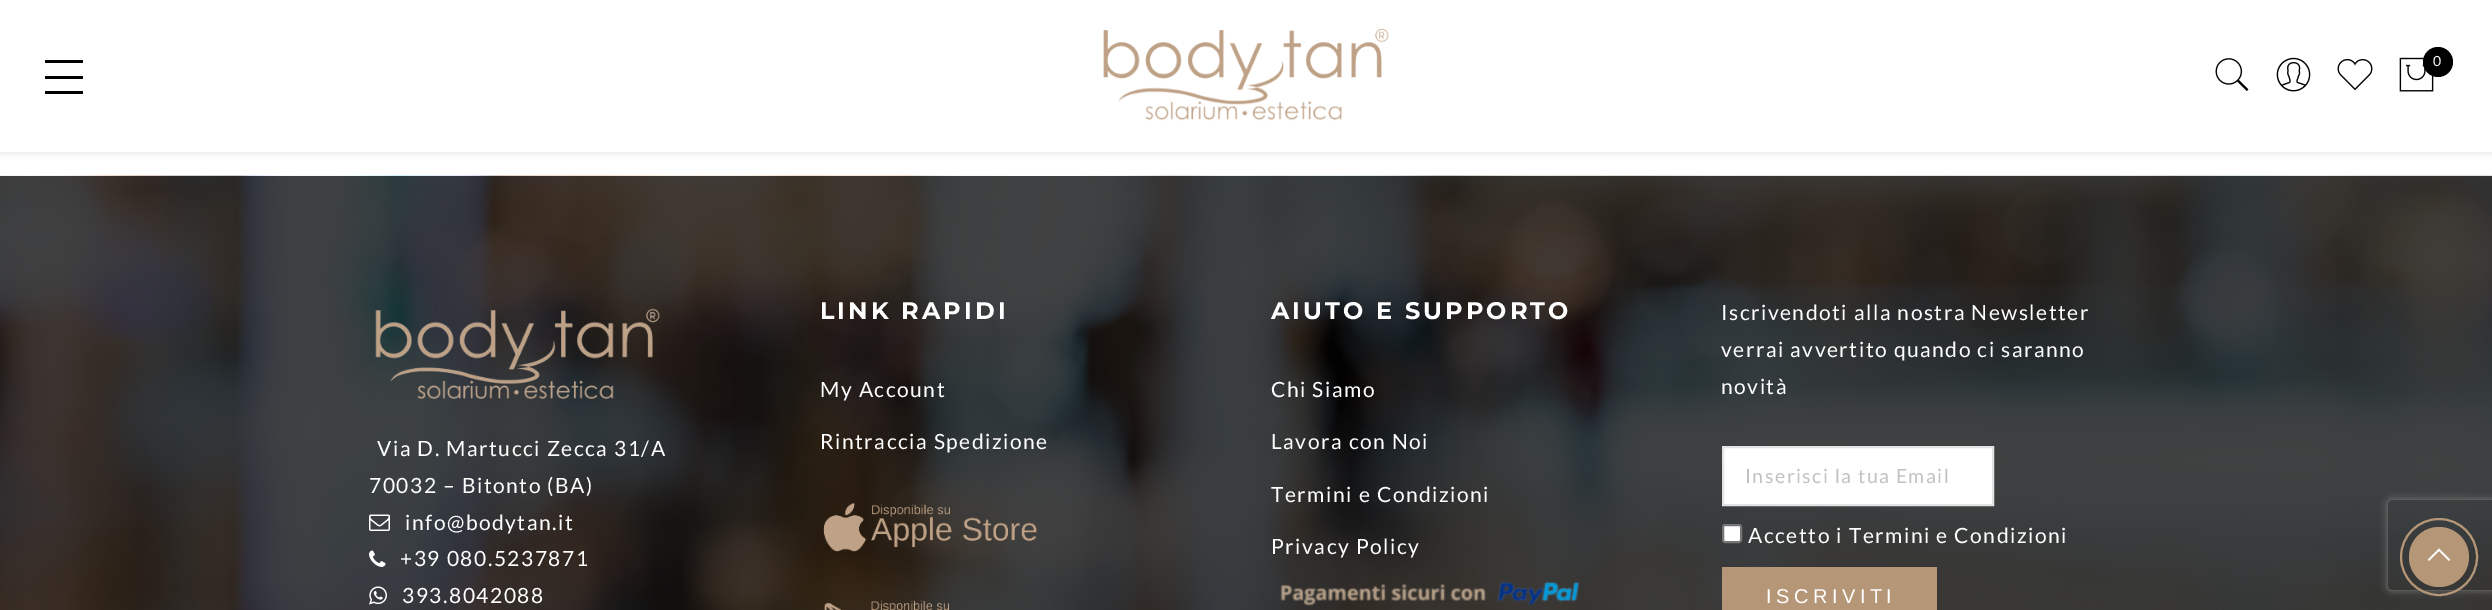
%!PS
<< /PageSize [2492 610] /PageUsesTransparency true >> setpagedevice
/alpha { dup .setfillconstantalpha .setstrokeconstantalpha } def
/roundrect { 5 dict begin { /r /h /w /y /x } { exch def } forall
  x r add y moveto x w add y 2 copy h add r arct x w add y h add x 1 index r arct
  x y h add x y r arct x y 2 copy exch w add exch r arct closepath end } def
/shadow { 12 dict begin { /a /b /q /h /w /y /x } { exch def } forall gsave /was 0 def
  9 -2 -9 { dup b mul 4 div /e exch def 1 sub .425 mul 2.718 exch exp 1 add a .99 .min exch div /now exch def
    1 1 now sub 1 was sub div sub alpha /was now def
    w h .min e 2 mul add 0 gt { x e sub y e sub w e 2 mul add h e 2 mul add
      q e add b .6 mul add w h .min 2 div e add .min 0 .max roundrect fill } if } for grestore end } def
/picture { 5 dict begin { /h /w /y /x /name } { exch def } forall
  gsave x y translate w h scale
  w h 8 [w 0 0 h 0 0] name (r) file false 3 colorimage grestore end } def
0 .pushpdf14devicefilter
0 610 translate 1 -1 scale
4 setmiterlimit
1 setgray
0 0 2492 610 rectfill
0 setgray
0 0 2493 152 0 4 0.12 shadow
1 setgray
0 0 2492 152 rectfill
0 setgray
45 60 38 3 rectfill
45 76 38 3 rectfill
45 91 38 3 rectfill
(img1.rgb) 1103 28 286 93 picture
(img2.rgb) 2215 58 34 33 picture
(img3.rgb) 2276 57 35 35 picture
(img4.rgb) 2337 59 36 32 picture
(img5.rgb) 2399 57 35 35 picture
newpath 2438 62 15 0 360 arc closepath fill
/Lato-Regular [14 0 0 -14 0 0] selectfont
1 setgray
2433 66 moveto 1.5 0 (0) ashow
(img6.rgb) 0 175 2492 435 picture
(img7.rgb) 375 308 285 91 picture
/Lato-Regular [21 0 0 -21 0 0] selectfont
377 456 moveto 1.5 0 (Via D. Martucci Zecca 31/A) ashow
369 493 moveto 1.5 0 (70032 – Bitonto \(BA\)) ashow
(img8.rgb) 369 514 21 17 picture
405 530 moveto 1.5 0 (info@bodytan.it) ashow
(img9.rgb) 369 550 17 17 picture
400 566 moveto 1.5 0 (+39 080.5237871) ashow
(img10.rgb) 369 586 18 19 picture
402 603 moveto 1.5 0 (393.8042088) ashow
/Montserrat-Bold [24 0 0 -24 0 0] selectfont
820 319 moveto 3 0 (LINK RAPIDI) ashow
/Lato-Regular [21 0 0 -21 0 0] selectfont
820 397 moveto 1.5 0 (My Account) ashow
820 449 moveto 1.5 0 (Rintraccia Spedizione) ashow
(img11.rgb) 823 503 214 49 picture
(img12.rgb) 824 600 125 10 picture
/Montserrat-Bold [24 0 0 -24 0 0] selectfont
1271 319 moveto 3 0 (AIUTO E SUPPORTO) ashow
/Lato-Regular [21 0 0 -21 0 0] selectfont
1271 397 moveto 1.5 0 (Chi Siamo) ashow
1271 449 moveto 1.5 0 (Lavora con Noi) ashow
1271 502 moveto 1.5 0 (Termini e Condizioni) ashow
1271 554 moveto 1.5 0 (Privacy Policy) ashow
(img13.rgb) 1280 581 299 25 picture
1721 320 moveto 1.5 0 (Iscrivendoti alla nostra Newsletter) ashow
1721 357 moveto 1.5 0 (verrai avvertito quando ci saranno) ashow
1721 394 moveto 1.5 0 (novità) ashow
newpath 1723 447 moveto 1993 447 lineto 1993 505 lineto 1723 505 lineto closepath gsave fill grestore
0.89 setgray
2 setlinewidth
stroke
/Lato-Regular [19.5 0 0 -19.5 0 0] selectfont
0.757 setgray
1745 483 moveto 1.5 0 (Inserisci la tua Email) ashow
1 setgray
1723 525 18 17 2 roundrect gsave fill grestore
0.463 setgray
stroke
/Lato-Regular [21 0 0 -21 0 0] selectfont
1 setgray
1748 543 moveto 1.5 0 (Accetto i Termini e Condizioni) ashow
0.71 0.588 0.467 setrgbcolor
1722 567 215 43 rectfill
/LiberationSans-Regular [20 0 0 -20 0 0] selectfont
1 setgray
1766 603 moveto 4.5 0 (ISCRIVITI) ashow
gsave
newpath 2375 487 moveto 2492 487 lineto 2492 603 lineto 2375 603 lineto closepath 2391 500 moveto 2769 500 lineto 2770.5 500 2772 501.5 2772 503 curveto 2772 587 lineto 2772 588.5 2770.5 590 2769 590 curveto 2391 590 lineto 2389.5 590 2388 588.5 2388 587 curveto 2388 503 lineto 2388 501.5 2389.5 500 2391 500 curveto closepath eoclip newpath
0.502 setgray
2388 500 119 90 3 4 1 shadow
grestore
0.71 0.588 0.467 setrgbcolor
newpath 2439 557 38 0 360 arc closepath stroke
newpath 2439 557 30 0 360 arc closepath fill
1 setgray
newpath 2440.5 550 moveto 2439 548.5 lineto 2428 559.5 lineto 2429 561 lineto 2439 551 lineto 2449 561 lineto 2450 559.5 lineto closepath fill
.poppdf14devicefilter showpage
